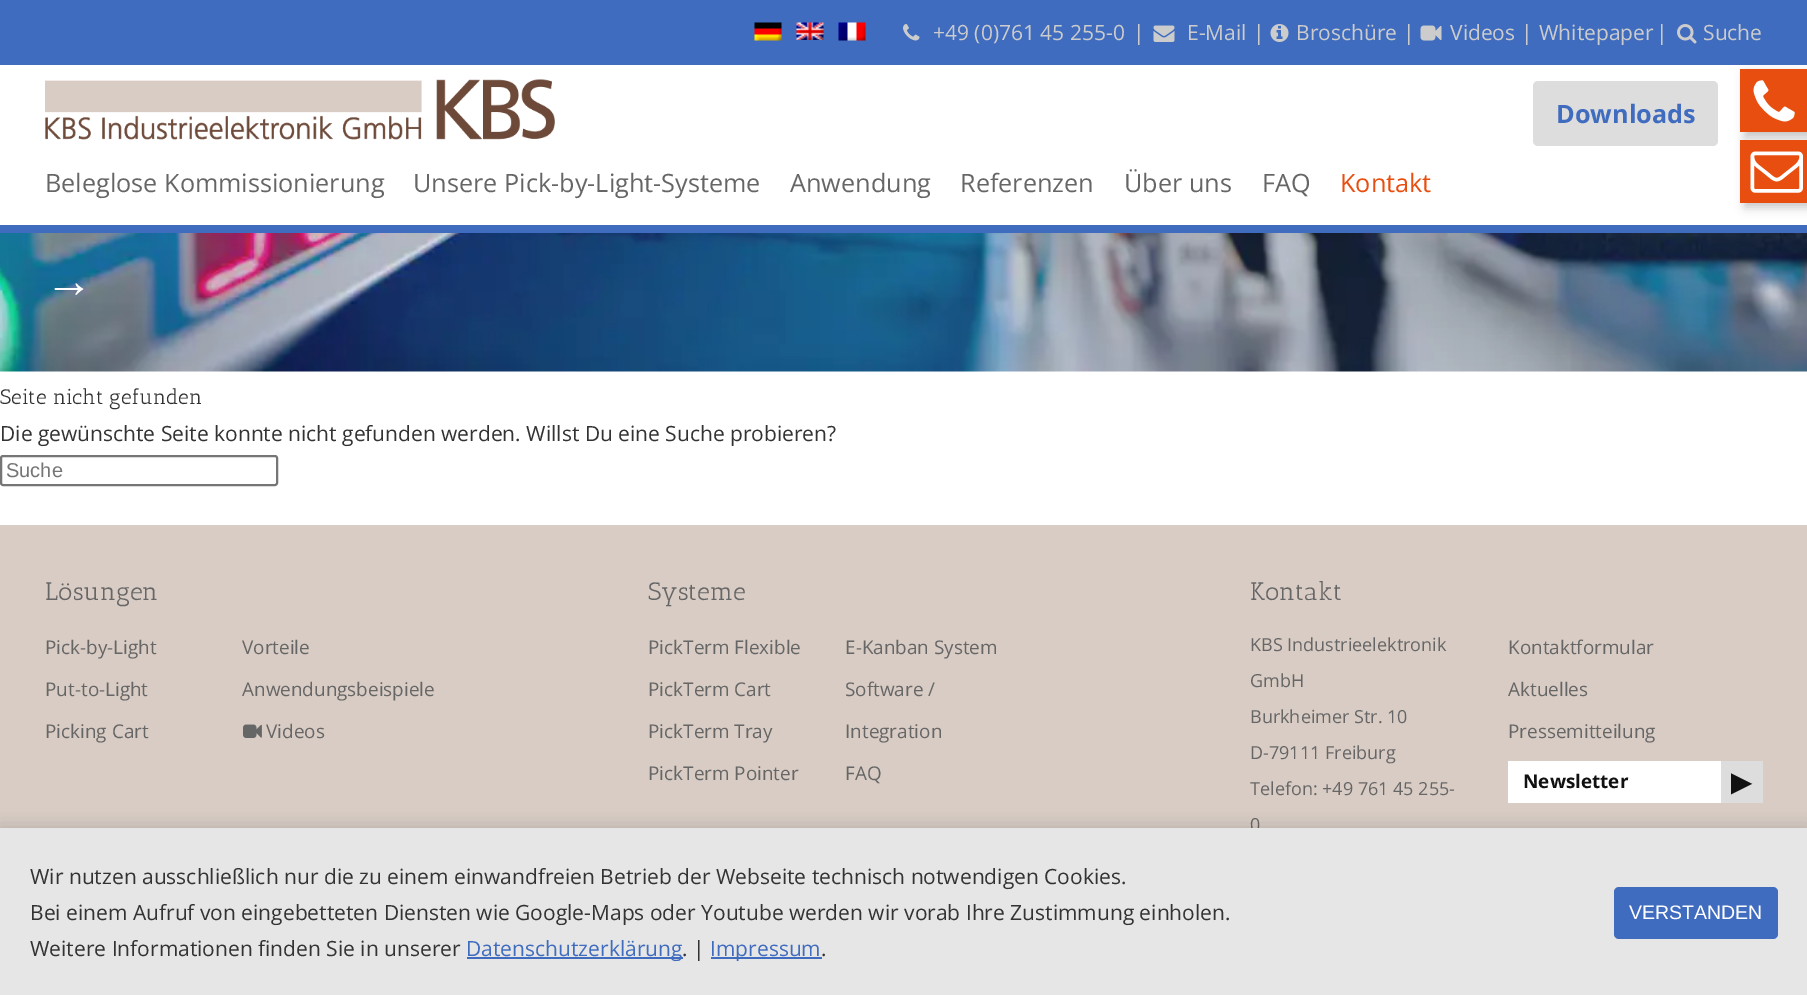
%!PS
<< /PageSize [1807 995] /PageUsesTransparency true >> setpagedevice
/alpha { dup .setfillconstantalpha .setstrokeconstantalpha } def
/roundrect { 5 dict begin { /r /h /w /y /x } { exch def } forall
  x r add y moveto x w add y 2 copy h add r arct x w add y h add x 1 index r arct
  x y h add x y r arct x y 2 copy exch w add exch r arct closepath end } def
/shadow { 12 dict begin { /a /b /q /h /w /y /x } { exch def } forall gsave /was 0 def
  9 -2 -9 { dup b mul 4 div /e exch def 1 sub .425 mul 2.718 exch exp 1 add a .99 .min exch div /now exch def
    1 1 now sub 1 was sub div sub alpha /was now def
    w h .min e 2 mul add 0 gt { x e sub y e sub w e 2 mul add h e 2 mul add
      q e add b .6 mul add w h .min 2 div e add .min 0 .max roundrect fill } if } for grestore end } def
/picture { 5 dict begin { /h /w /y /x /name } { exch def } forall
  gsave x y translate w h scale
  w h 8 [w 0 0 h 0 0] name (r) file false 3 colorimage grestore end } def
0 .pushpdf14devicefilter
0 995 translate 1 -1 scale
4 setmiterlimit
1 setgray
0 0 1807 995 rectfill
0.247 0.424 0.745 setrgbcolor
0 225 1807 8 rectfill
0 0 1807 65 rectfill
(img1.rgb) 754 22 28 19 picture
(img2.rgb) 796 22 28 18 picture
(img3.rgb) 838 22 28 19 picture
(img4.rgb) 903 24 17 17 picture
/OpenSans-Regular [21 0 0 -21 0 0] selectfont
0.8 setgray
933 40 moveto (+49 \(0\)761 45 255-0) show
1133 40 moveto (|) show
(img5.rgb) 1153 25 22 17 picture
1187 40 moveto (E-Mail) show
1253 40 moveto (|) show
(img6.rgb) 1270 24 19 18 picture
1296 40 moveto (Broschüre) show
1403 40 moveto (|) show
(img7.rgb) 1420 25 22 16 picture
1450 40 moveto (Videos) show
1521 40 moveto (|) show
1539 40 moveto (Whitepaper) show
1656 40 moveto (|) show
(img8.rgb) 1677 24 20 20 picture
1703 40 moveto (Suche) show
(img9.rgb) 45 79 510 61 picture
0.867 setgray
1533 81 185 65 5 roundrect fill
/OpenSans-Bold [25.25 0 0 -25.25 0 0] selectfont
0.247 0.424 0.745 setrgbcolor
1556 123 moveto (Downloads) show
/OpenSans-Regular [25.25 0 0 -25.25 0 0] selectfont
0.4 setgray
45 192 moveto (Beleglose Kommissionierung) show
413 192 moveto (Unsere Pick-by-Light-Systeme) show
790 192 moveto (Anwendung) show
960 192 moveto (Referenzen) show
1124 192 moveto (Über uns) show
1262 192 moveto (FAQ) show
0.91 0.306 0.059 setrgbcolor
1340 192 moveto (Kontakt) show
0.196 setgray
1745 74 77 63 0 5 0.3 shadow
0.91 0.306 0.059 setrgbcolor
1740 69 67 63 rectfill
(img10.rgb) 1753 80 42 42 picture
0.196 setgray
1745 144 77 63 0 5 0.3 shadow
0.91 0.306 0.059 setrgbcolor
1740 140 67 63 rectfill
(img11.rgb) 1750 151 53 42 picture
(img12.rgb) 0 233 1807 139 picture
/LiberationSerif-Regular [48 0 0 -48 0 0] selectfont
1 setgray
45 297 moveto (→) show
/AnticSlab-Regular [21 0 0 -21 0 0] selectfont
0.2 setgray
0 404 moveto (Seite nicht gefunden) show
/OpenSans-Regular [21 0 0 -21 0 0] selectfont
0 441 moveto (Die gewünschte Seite konnte nicht gefunden werden. Willst Du eine Suche probieren?) show
0.463 setgray
2 setlinewidth
1 456 276 29 2 roundrect stroke
/LiberationSans-Regular [20 0 0 -20 0 0] selectfont
0.459 setgray
6 477 moveto (Suche) show
0.847 0.8 0.769 setrgbcolor
0 525 1807 303 rectfill
/AnticSlab-Regular [25.25 0 0 -25.25 0 0] selectfont
0.4 setgray
45 600 moveto (Lösungen) show
/OpenSans-Regular [18.9 0 0 -18.9 0 0] selectfont
45 654 moveto (Pick-by-Light) show
242 654 moveto (Vorteile) show
45 696 moveto (Put-to-Light) show
242 696 moveto (Anwendungsbeispiele) show
45 738 moveto (Picking Cart) show
(img13.rgb) 243 724 19 14 picture
266 738 moveto (Videos) show
/AnticSlab-Regular [25.25 0 0 -25.25 0 0] selectfont
648 600 moveto (Systeme) show
/OpenSans-Regular [18.9 0 0 -18.9 0 0] selectfont
648 654 moveto (PickTerm Flexible) show
845 654 moveto (E-Kanban System) show
648 696 moveto (PickTerm Cart) show
845 696 moveto (Software /) show
845 738 moveto (Integration) show
648 738 moveto (PickTerm Tray) show
648 780 moveto (PickTerm Pointer) show
845 780 moveto (FAQ) show
/AnticSlab-Regular [25.25 0 0 -25.25 0 0] selectfont
1250 600 moveto (Kontakt) show
/OpenSans-Regular [18 0 0 -18 0 0] selectfont
1250 651 moveto (KBS Industrieelektronik) show
1250 687 moveto (GmbH) show
1250 723 moveto (Burkheimer Str. 10) show
1250 759 moveto (D-79111 Freiburg) show
1250 795 moveto (Telefon: +49 761 45 255-) show
1250 831 moveto (0) show
/OpenSans-Regular [18.9 0 0 -18.9 0 0] selectfont
1508 654 moveto (Kontaktformular) show
1508 696 moveto (Aktuelles) show
1508 738 moveto (Pressemitteilung) show
1 setgray
1508 761 213 42 rectfill
/OpenSans-Bold [18.9 0 0 -18.9 0 0] selectfont
0.067 setgray
1523 788 moveto (Newsletter) show
0.867 setgray
1721 761 42 42 rectfill
/DejaVuSans-Bold [26 0 0 -26 0 0] selectfont
0.067 setgray
1731 791 moveto (▶) show
0 setgray
0 828 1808 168 0 9 0.15 shadow
0.902 setgray
0 828 1807 167 rectfill
/OpenSans-Regular [21 0 0 -21 0 0] selectfont
0.2 setgray
30 884 moveto (Wir nutzen ausschließlich nur die zu einem einwandfreien Betrieb der Webseite technisch notwendigen Cookies.) show
30 920 moveto (Bei einem Aufruf von eingebetteten Diensten wie Google-Maps oder Youtube werden wir vorab Ihre Zustimmung einholen.) show
30 956 moveto (Weitere Informationen finden Sie in unserer) show
0.247 0.424 0.745 setrgbcolor
467 957 216 2 rectfill
466 956 moveto (Datenschutzerklärung) show
0.2 setgray
682 956 moveto (. |) show
0.247 0.424 0.745 setrgbcolor
711 957 111 2 rectfill
710 956 moveto (Impressum) show
0.2 setgray
821 956 moveto (.) show
0.247 0.424 0.745 setrgbcolor
1614 887 164 52 5 roundrect fill
/LiberationSans-Regular [19.5 0 0 -19.5 0 0] selectfont
1 setgray
1629 919 moveto (VERSTANDEN) show
.poppdf14devicefilter showpage
